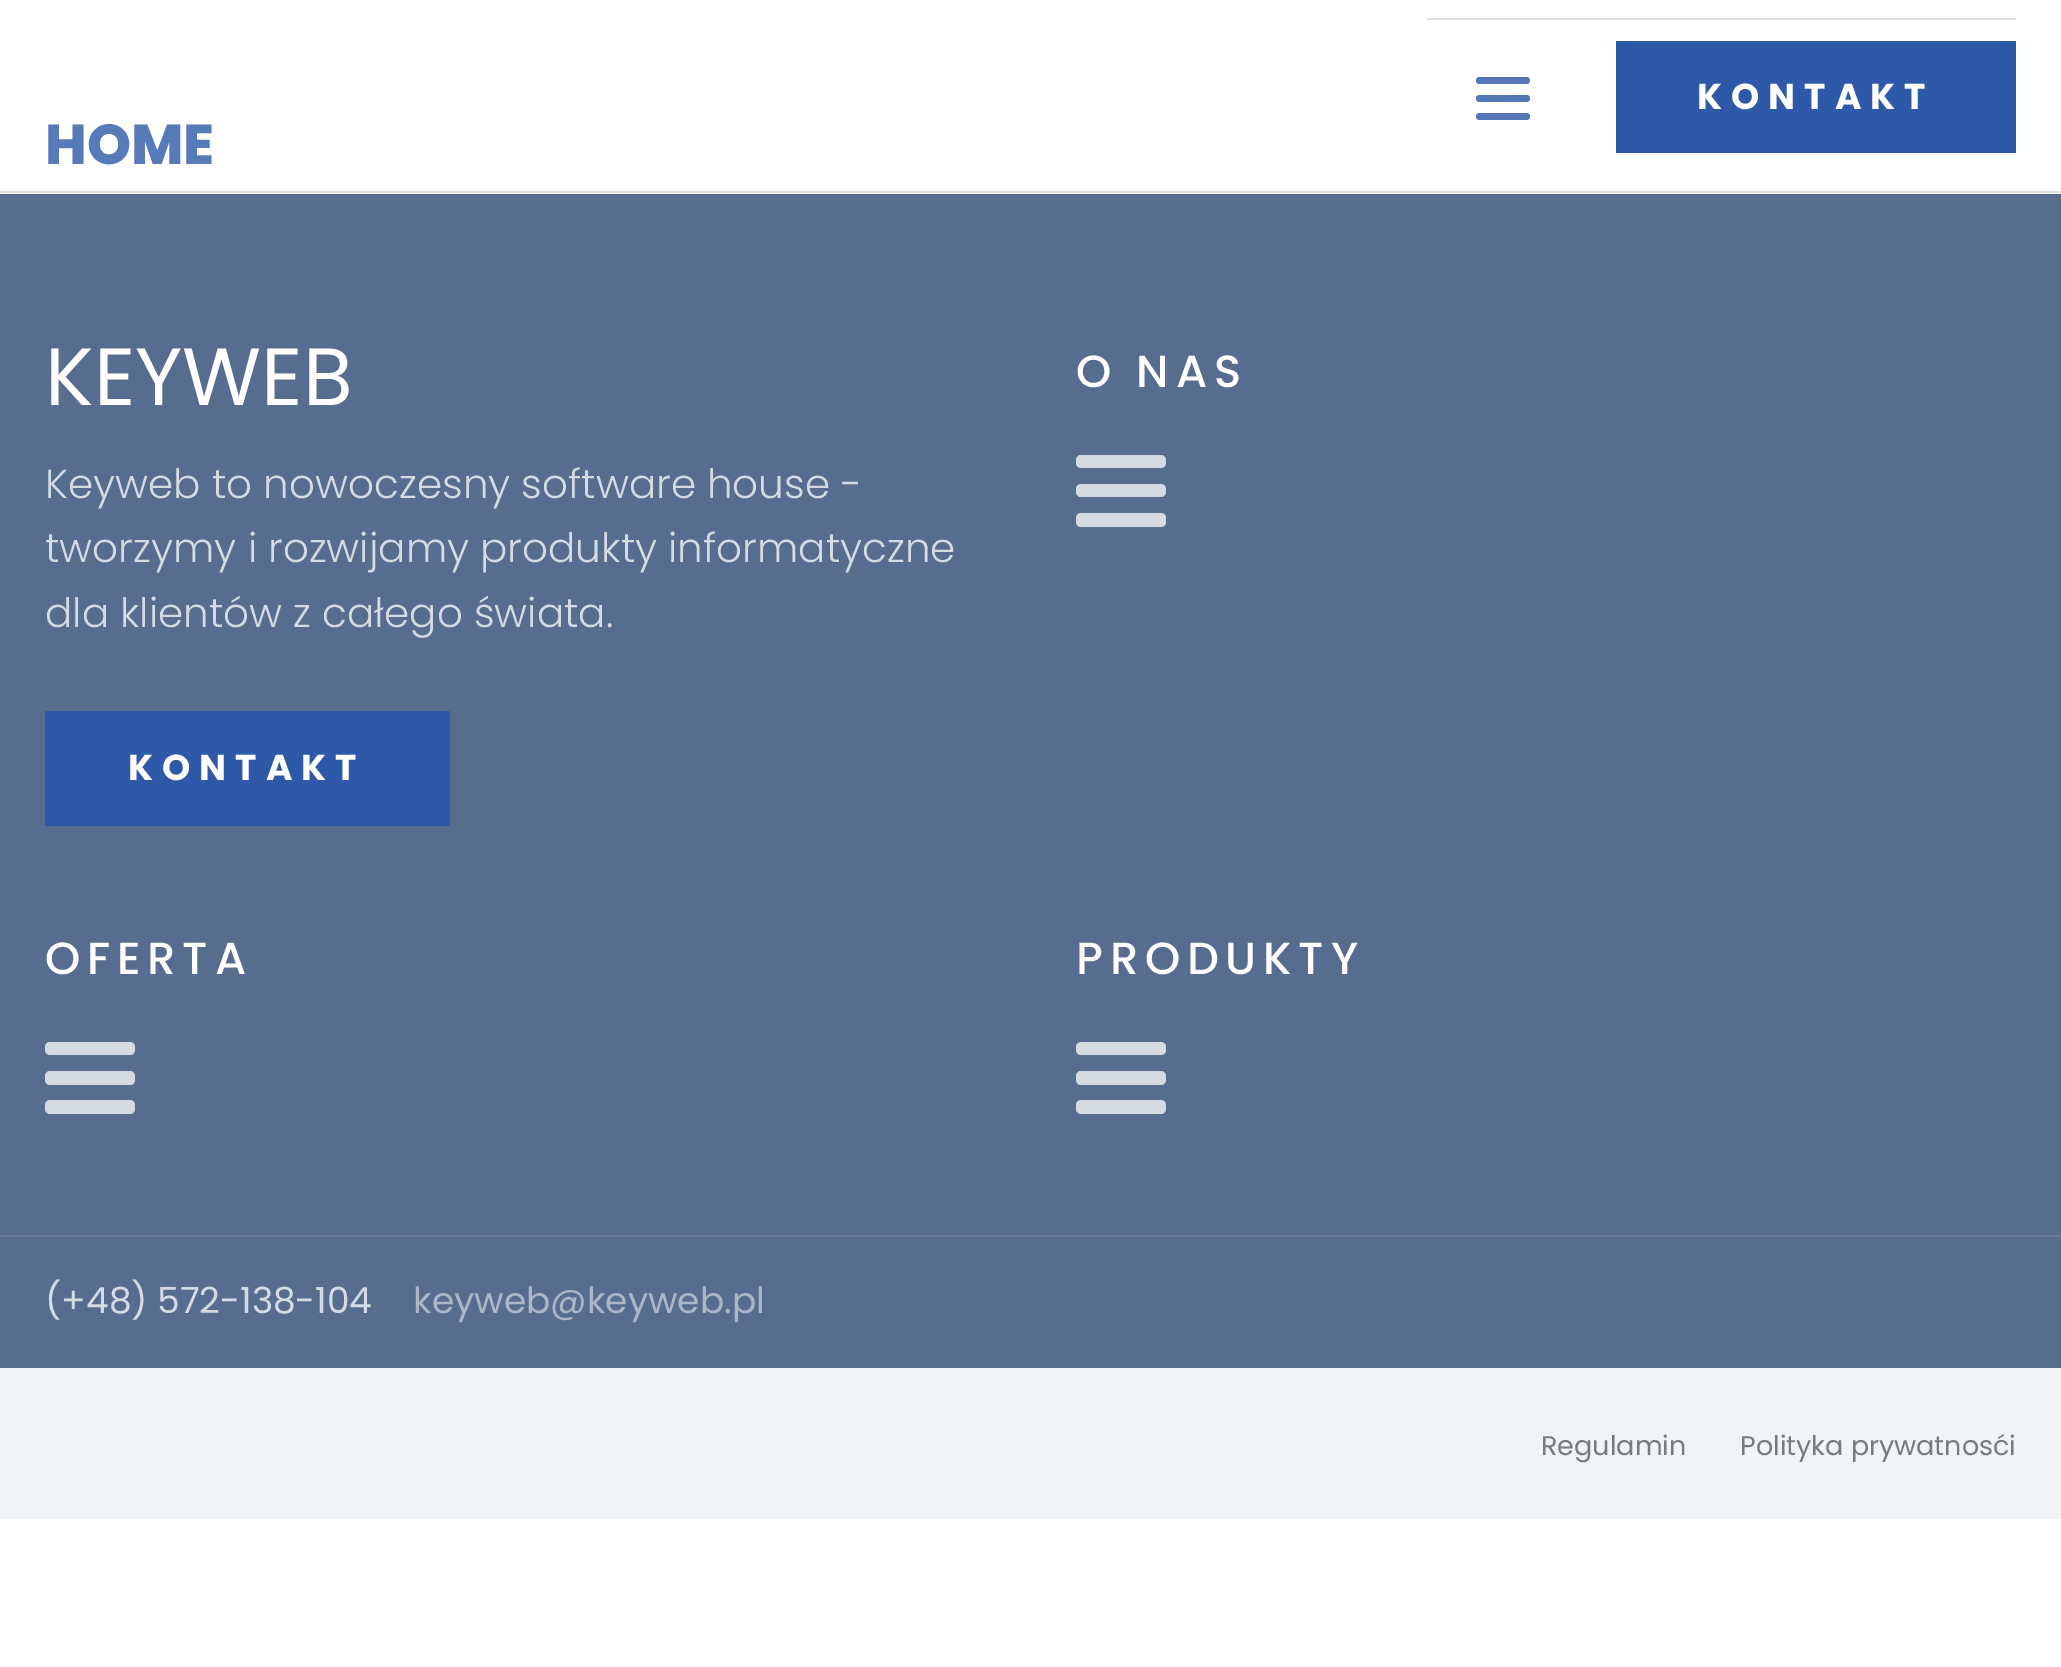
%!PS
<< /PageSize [2061 1667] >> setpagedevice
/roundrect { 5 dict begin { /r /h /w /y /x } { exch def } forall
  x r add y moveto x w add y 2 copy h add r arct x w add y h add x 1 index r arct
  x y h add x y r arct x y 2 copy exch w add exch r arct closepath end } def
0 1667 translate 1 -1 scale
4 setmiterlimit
1 setgray
0 0 2061 1667 rectfill
0.867 setgray
0 191 2061 2 rectfill
1427 18 589 2 rectfill
0.337 0.467 0.718 setrgbcolor
1476 77 54 7 3.5 roundrect fill
1476 95 54 7 3.5 roundrect fill
1476 113 54 7 3.5 roundrect fill
0.176 0.349 0.659 setrgbcolor
1616 41 400 112 rectfill
/Poppins-Bold [36 0 0 -36 0 0] selectfont
1 setgray
1697 109 moveto 9 0 (KONTAKT) ashow
/Poppins-ExtraBold [56 0 0 -56 0 0] selectfont
0.341 0.478 0.725 setrgbcolor
45 164 moveto (HOME) show
0.337 0.427 0.561 setrgbcolor
0 194 2061 1174 rectfill
0.404 0.486 0.604 setrgbcolor
0 1235 2061 2 rectfill
/Poppins-Regular [81 0 0 -81 0 0] selectfont
1 setgray
45 405 moveto (KEYWEB) show
/Poppins-Light [40.5 0 0 -40.5 0 0] selectfont
0.835 0.859 0.89 setrgbcolor
45 498 moveto (Keyweb to nowoczesny software house -) show
45 562 moveto (tworzymy i rozwijamy produkty informatyczne) show
45 627 moveto (dla klientów z całego świata.) show
0.176 0.349 0.659 setrgbcolor
45 711 405 115 rectfill
/Poppins-Bold [36 0 0 -36 0 0] selectfont
1 setgray
128 780 moveto 9 0 (KONTAKT) ashow
/Poppins-Medium [45 0 0 -45 0 0] selectfont
1076 387 moveto 6.75 0 (O NAS) ashow
0.835 0.859 0.89 setrgbcolor
1076 455 90 13 5 roundrect fill
1076 484 90 13 5 roundrect fill
1076 513 90 14 5 roundrect fill
1 setgray
45 974 moveto 6.75 0 (OFERTA) ashow
0.835 0.859 0.89 setrgbcolor
45 1042 90 13 5 roundrect fill
45 1071 90 14 5 roundrect fill
45 1100 90 14 5 roundrect fill
1 setgray
1076 974 moveto 6.75 0 (PRODUKTY) ashow
0.835 0.859 0.89 setrgbcolor
1076 1042 90 13 5 roundrect fill
1076 1071 90 14 5 roundrect fill
1076 1100 90 14 5 roundrect fill
/Poppins-Regular [36 0 0 -36 0 0] selectfont
45 1313 moveto (\(+48\) 572-138-104) show
0.671 0.714 0.78 setrgbcolor
413 1313 moveto (keyweb@keyweb.pl) show
0.937 0.957 0.969 setrgbcolor
0 1370 2061 149 rectfill
0.945 0.961 0.973 setrgbcolor
0 1368 2061 2 rectfill
/Poppins-Regular [27 0 0 -27 0 0] selectfont
0.471 0.478 0.486 setrgbcolor
1541 1455 moveto (Regulamin) show
1740 1455 moveto (Polityka prywatnosći) show
showpage
